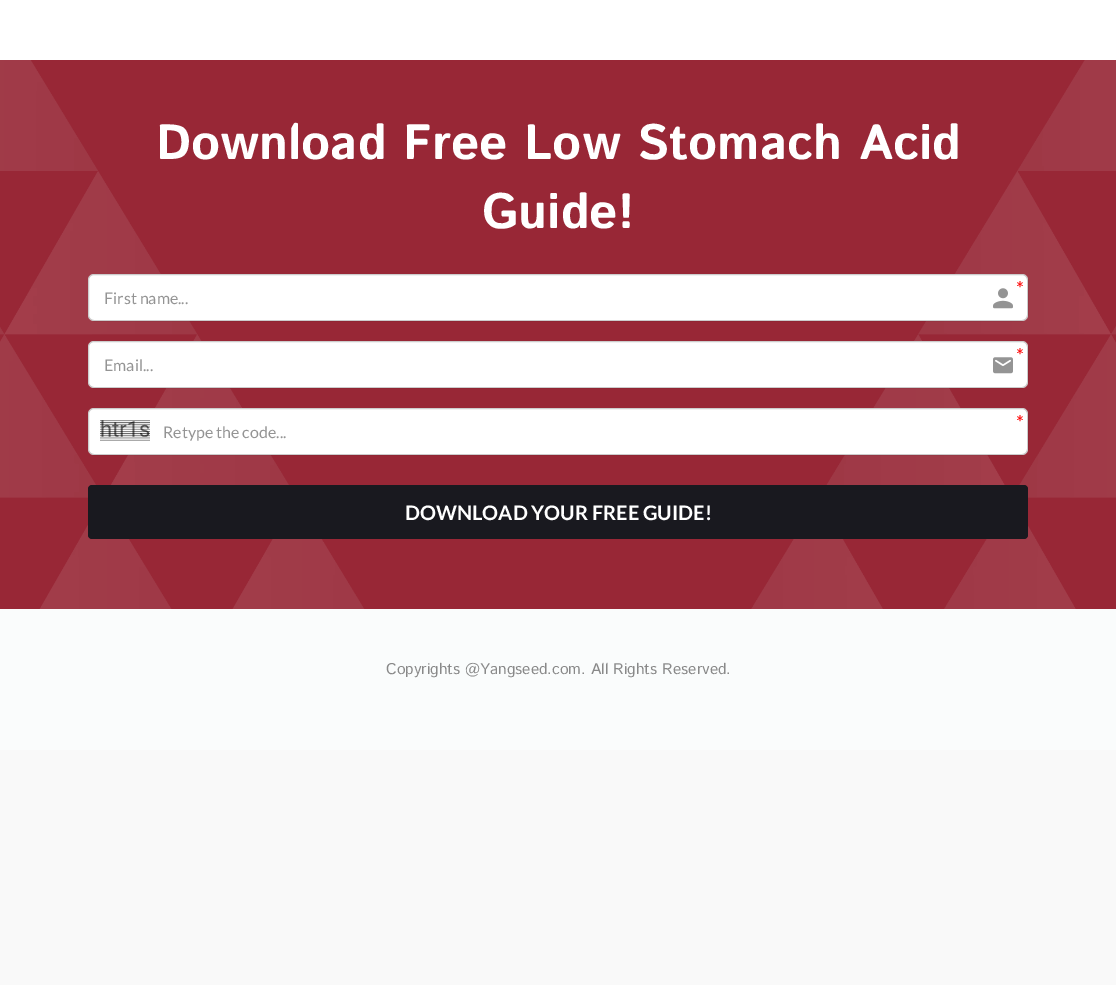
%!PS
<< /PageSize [1116 985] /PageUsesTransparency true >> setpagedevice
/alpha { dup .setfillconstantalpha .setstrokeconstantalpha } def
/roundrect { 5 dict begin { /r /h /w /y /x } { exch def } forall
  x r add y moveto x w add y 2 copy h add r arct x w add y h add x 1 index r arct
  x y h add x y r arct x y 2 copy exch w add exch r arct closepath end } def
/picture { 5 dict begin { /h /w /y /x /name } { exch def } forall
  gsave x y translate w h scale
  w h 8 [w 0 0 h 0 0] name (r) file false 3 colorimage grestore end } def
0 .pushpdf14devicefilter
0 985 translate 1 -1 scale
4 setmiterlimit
0.976 setgray
0 0 1116 985 rectfill
1 setgray
0 0 1116 60 rectfill
0.596 0.153 0.212 setrgbcolor
0 60 1116 549 rectfill
(img1.rgb) 0 60 1116 549 picture
/IstokWeb-Bold [49.5 0 0 -49.5 0 0] selectfont
1 setgray
156 159 moveto (Download Free Low Stomach Acid) show
482 228 moveto (Guide!) show
88 274 940 47 6 roundrect fill
0.2 alpha
0 setgray
88.5 274.5 939 46 5.5 roundrect stroke
/Lato-Regular [20 0 0 -20 0 0] selectfont
1 alpha
1 0 0 setrgbcolor
1016 296 moveto (*) show
/Lato-Regular [16 0 0 -16 0 0] selectfont
0.58 setgray
104 304 moveto (First name...) show
(img2.rgb) 993 288 20 21 picture
1 setgray
88 341 940 47 6 roundrect fill
0.2 alpha
0 setgray
88.5 341.5 939 46 5.5 roundrect stroke
/Lato-Regular [20 0 0 -20 0 0] selectfont
1 alpha
1 0 0 setrgbcolor
1016 363 moveto (*) show
/Lato-Regular [16 0 0 -16 0 0] selectfont
0.58 setgray
104 371 moveto (Email...) show
(img3.rgb) 993 357 20 17 picture
1 setgray
88 408 940 47 6 roundrect fill
0.2 alpha
0 setgray
88.5 408.5 939 46 5.5 roundrect stroke
/Lato-Regular [20 0 0 -20 0 0] selectfont
1 alpha
1 0 0 setrgbcolor
1016 430 moveto (*) show
(img4.rgb) 100 420 50 21 picture
/Lato-Regular [16 0 0 -16 0 0] selectfont
0.58 setgray
163 438 moveto (Retype the code...) show
0.098 0.098 0.122 setrgbcolor
88 485 940 54 4 roundrect fill
/Lato-Bold [20 0 0 -20 0 0] selectfont
1 setgray
405 520 moveto (DOWNLOAD YOUR FREE GUIDE!) show
0.98 0.988 0.988 setrgbcolor
0 609 1116 141 rectfill
/IstokWeb-Regular [15.5 0 0 -15.5 0 0] selectfont
0.537 setgray
386 674 moveto (Copyrights @Yangseed.com. All Rights Reserved.) show
.poppdf14devicefilter showpage
